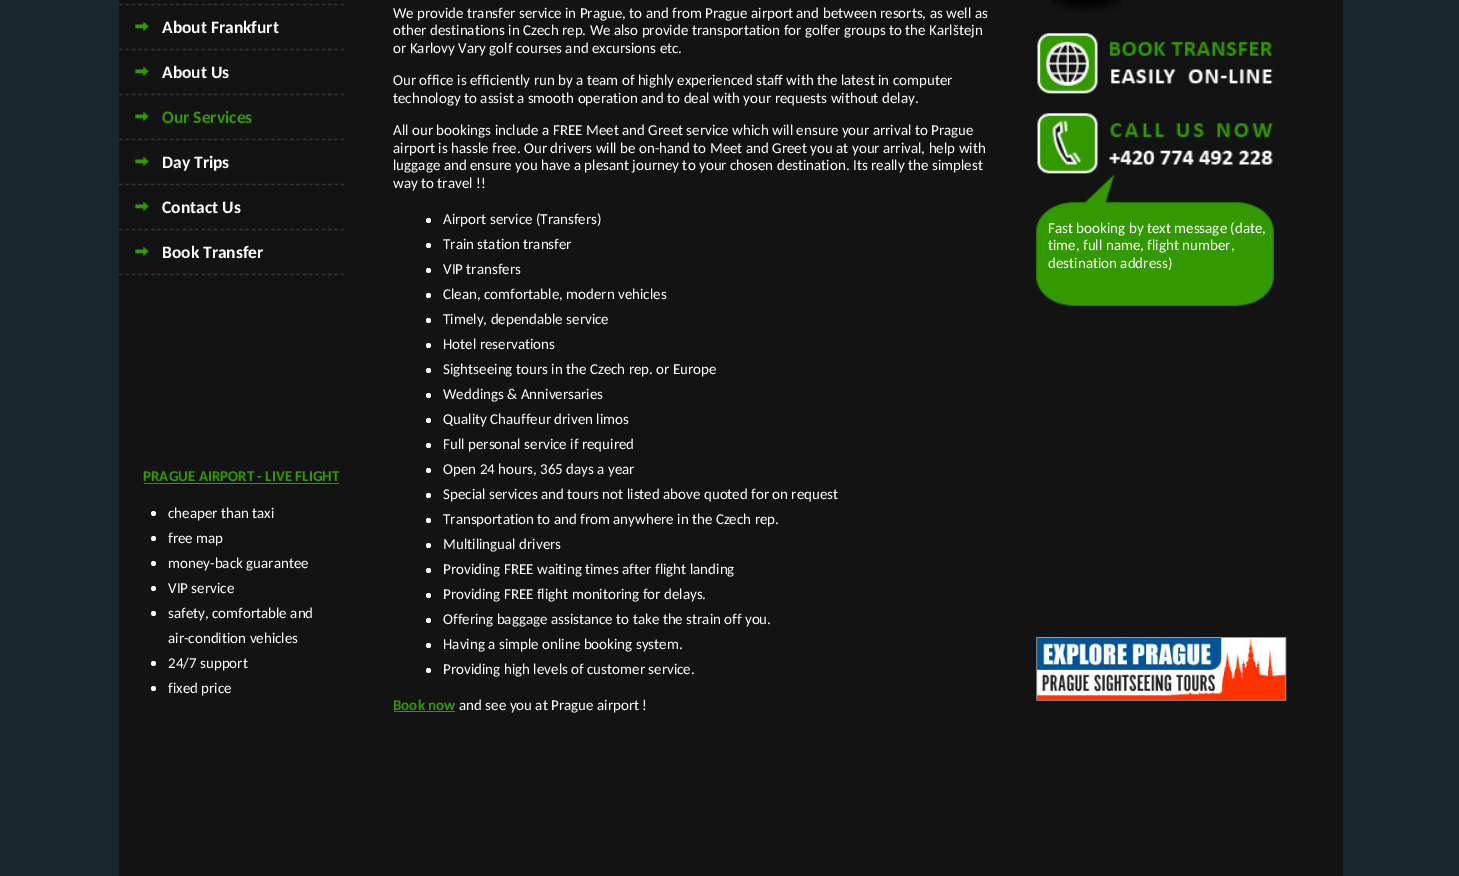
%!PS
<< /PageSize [1459 876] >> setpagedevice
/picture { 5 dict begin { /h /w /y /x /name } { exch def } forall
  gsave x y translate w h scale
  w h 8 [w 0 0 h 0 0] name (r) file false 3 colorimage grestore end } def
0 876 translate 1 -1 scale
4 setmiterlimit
0.098 0.149 0.176 setrgbcolor
0 0 1459 876 rectfill
0.075 setgray
119 0 1224 876 rectfill
(img1.rgb) 1050 0 73 12 picture
0.2 setgray
1.2 setlinewidth
[3.75 2.58] 0 setdash
newpath 119 4.5 moveto 344 4.5 lineto stroke
newpath 119 49.5 moveto 344 49.5 lineto stroke
(img2.rgb) 135 22 14 9 picture
/Carlito-Bold [17.5 0 0 -17.5 0 0] selectfont
1 setgray
162 33 moveto (About Frankfurt) show
0.2 setgray
newpath 119 94.5 moveto 344 94.5 lineto stroke
(img2.rgb) 135 67 14 9 picture
1 setgray
162 78 moveto (About Us) show
0.2 setgray
newpath 119 139.5 moveto 344 139.5 lineto stroke
(img2.rgb) 135 112 14 9 picture
0.2 0.6 0 setrgbcolor
162 123 moveto (Our Services) show
0.2 setgray
newpath 119 184.5 moveto 344 184.5 lineto stroke
(img2.rgb) 135 157 14 9 picture
1 setgray
162 168 moveto (Day Trips) show
0.2 setgray
newpath 119 229.5 moveto 344 229.5 lineto stroke
(img2.rgb) 135 202 14 9 picture
1 setgray
162 213 moveto (Contact Us) show
0.2 setgray
newpath 119 274.5 moveto 344 274.5 lineto stroke
(img2.rgb) 135 247 14 9 picture
1 setgray
162 258 moveto (Book Transfer) show
/Carlito-Bold [15 0 0 -15 0 0] selectfont
0.2 0.6 0 setrgbcolor
143 481 moveto (PRAGUE AIRPORT - LIVE FLIGHT) show
144 483 195 1 rectfill
1 setgray
newpath 153.5 513.5 2.5 0 360 arc closepath fill
/Carlito-Regular [15 0 0 -15 0 0] selectfont
168 518 moveto (cheaper than taxi) show
newpath 153.5 538.5 2.5 0 360 arc closepath fill
168 543 moveto (free map) show
newpath 153.5 563.5 2.5 0 360 arc closepath fill
168 568 moveto (money-back guarantee) show
newpath 153.5 588.5 2.5 0 360 arc closepath fill
168 593 moveto (VIP service) show
newpath 153.5 613.5 2.5 0 360 arc closepath fill
168 618 moveto (safety, comfortable and) show
168 643 moveto (air-condition vehicles) show
newpath 153.5 663.5 2.5 0 360 arc closepath fill
168 668 moveto (24/7 support) show
newpath 153.5 688.5 2.5 0 360 arc closepath fill
168 693 moveto (fixed price) show
393 18 moveto (We provide transfer service in Prague, to and from Prague airport and between resorts, as well as) show
393 35 moveto (other destinations in Czech rep. We also provide transportation for golfer groups to the Karlštejn) show
393 53 moveto (or Karlovy Vary golf courses and excursions etc.) show
393 85 moveto (Our office is efficiently run by a team of highly experienced staff with the latest in computer) show
393 103 moveto (technology to assist a smooth operation and to deal with your requests without delay.) show
393 135 moveto (All our bookings include a FREE Meet and Greet service which will ensure your arrival to Prague) show
393 153 moveto (airport is hassle free. Our drivers will be on-hand to Meet and Greet you at your arrival, help with) show
393 170 moveto (luggage and ensure you have a plesant journey to your chosen destination. Its really the simplest) show
393 188 moveto (way to travel !!) show
newpath 428.5 220.5 2.5 0 360 arc closepath fill
443 224 moveto (Airport service \(Transfers\)) show
newpath 428.5 245.5 2.5 0 360 arc closepath fill
443 249 moveto (Train station transfer) show
newpath 428.5 270.5 2.5 0 360 arc closepath fill
443 274 moveto (VIP transfers) show
newpath 428.5 295.5 2.5 0 360 arc closepath fill
443 299 moveto (Clean, comfortable, modern vehicles) show
newpath 428.5 320.5 2.5 0 360 arc closepath fill
443 324 moveto (Timely, dependable service) show
newpath 428.5 345.5 2.5 0 360 arc closepath fill
443 349 moveto (Hotel reservations) show
newpath 428.5 370.5 2.5 0 360 arc closepath fill
443 374 moveto (Sightseeing tours in the Czech rep. or Europe) show
newpath 428.5 395.5 2.5 0 360 arc closepath fill
443 399 moveto (Weddings & Anniversaries) show
newpath 428.5 420.5 2.5 0 360 arc closepath fill
443 424 moveto (Quality Chauffeur driven limos) show
newpath 428.5 445.5 2.5 0 360 arc closepath fill
443 449 moveto (Full personal service if required) show
newpath 428.5 470.5 2.5 0 360 arc closepath fill
443 474 moveto (Open 24 hours, 365 days a year) show
newpath 428.5 495.5 2.5 0 360 arc closepath fill
443 499 moveto (Special services and tours not listed above quoted for on request) show
newpath 428.5 520.5 2.5 0 360 arc closepath fill
443 524 moveto (Transportation to and from anywhere in the Czech rep.) show
newpath 428.5 545.5 2.5 0 360 arc closepath fill
443 549 moveto (Multilingual drivers) show
newpath 428.5 570.5 2.5 0 360 arc closepath fill
443 574 moveto (Providing FREE waiting times after flight landing) show
newpath 428.5 595.5 2.5 0 360 arc closepath fill
443 599 moveto (Providing FREE flight monitoring for delays.) show
newpath 428.5 620.5 2.5 0 360 arc closepath fill
443 624 moveto (Offering baggage assistance to take the strain off you.) show
newpath 428.5 645.5 2.5 0 360 arc closepath fill
443 649 moveto (Having a simple online booking system.) show
newpath 428.5 670.5 2.5 0 360 arc closepath fill
443 674 moveto (Providing high levels of customer service.) show
/Carlito-Bold [15 0 0 -15 0 0] selectfont
0.2 0.6 0 setrgbcolor
393 710 moveto (Book now) show
394 711 61 1 rectfill
/Carlito-Regular [15 0 0 -15 0 0] selectfont
1 setgray
459 710 moveto (and see you at Prague airport !) show
(img3.rgb) 1037 33 236 61 picture
(img5.rgb) 1036 174 238 132 picture
(img4.rgb) 1037 113 236 62 picture
1048 233 moveto (Fast booking by text message \(date,) show
1048 250 moveto (time, full name, flight number,) show
1048 268 moveto (destination address\)) show
(img6.rgb) 1036 637 251 64 picture
showpage
